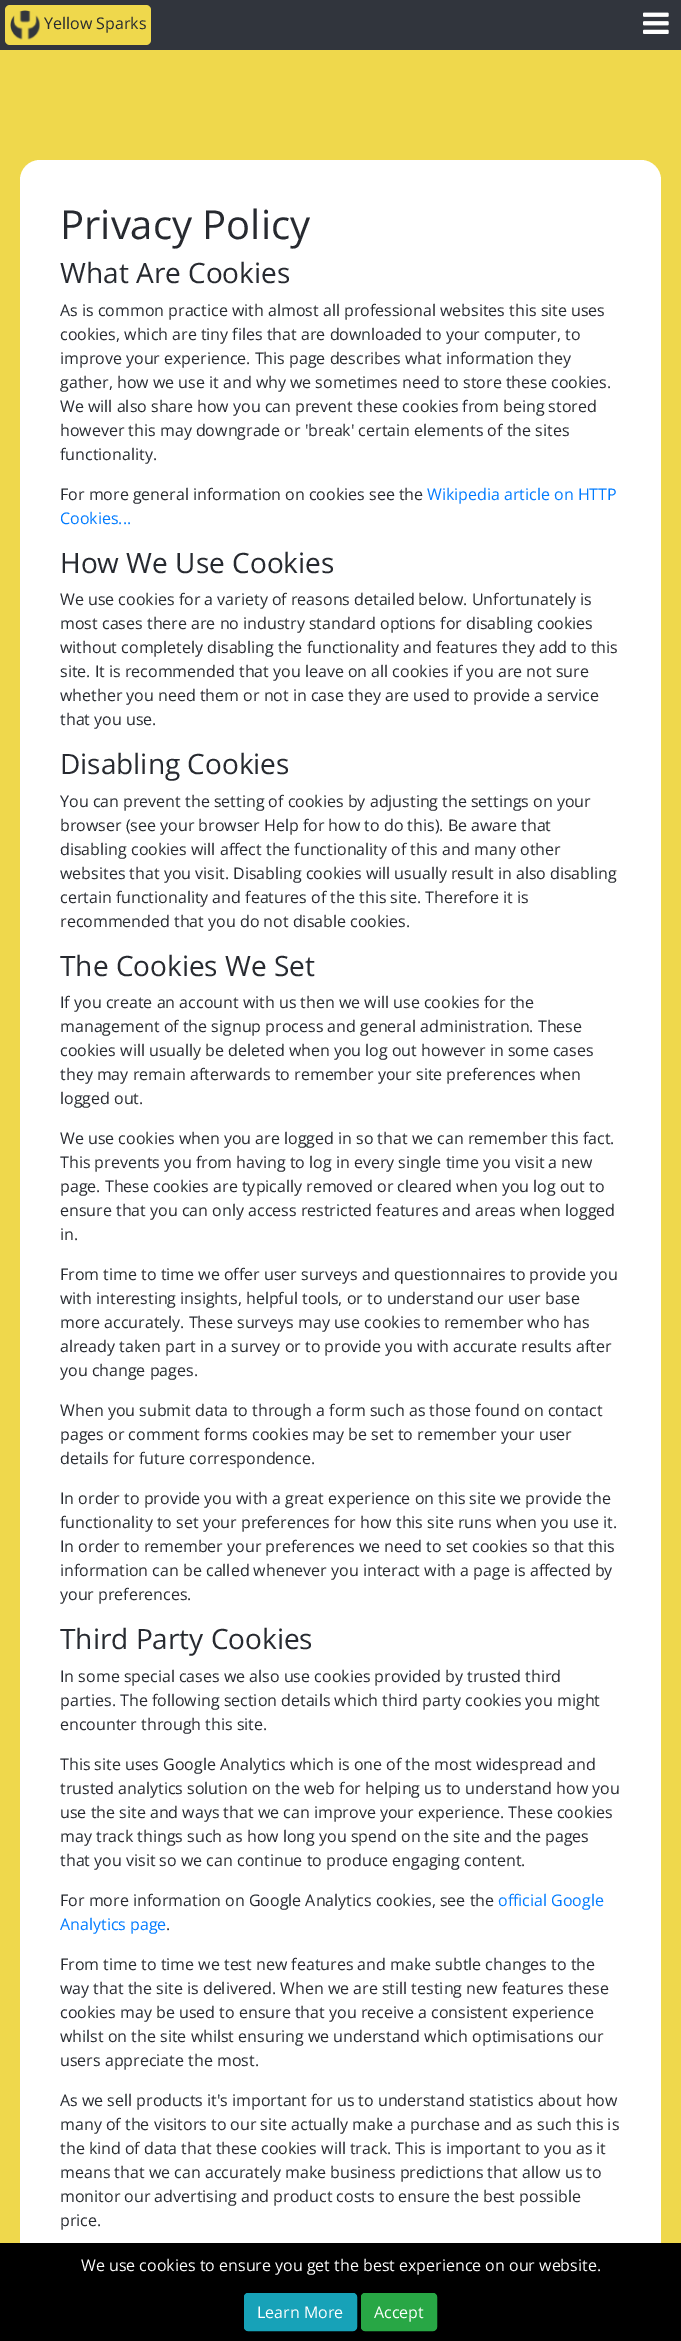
%!PS
<< /PageSize [681 2341] >> setpagedevice
/roundrect { 5 dict begin { /r /h /w /y /x } { exch def } forall
  x r add y moveto x w add y 2 copy h add r arct x w add y h add x 1 index r arct
  x y h add x y r arct x y 2 copy exch w add exch r arct closepath end } def
/picture { 5 dict begin { /h /w /y /x /name } { exch def } forall
  gsave x y translate w h scale
  w h 8 [w 0 0 h 0 0] name (r) file false 3 colorimage grestore end } def
0 2341 translate 1 -1 scale
4 setmiterlimit
0.937 0.847 0.298 setrgbcolor
0 0 681 2341 rectfill
0.192 0.208 0.239 setrgbcolor
0 0 681 50 rectfill
0.937 0.847 0.298 setrgbcolor
5 5 146 40 5 roundrect fill
(img1.rgb) 10 10 30 30 picture
/OpenSans-Regular [16 0 0 -16 0 0] selectfont
0.153 0.165 0.188 setrgbcolor
44 29 moveto (Yellow Sparks) show
(img2.rgb) 643 12 26 22 picture
1 setgray
20 160 641 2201 20 roundrect fill
/OpenSans-Regular [40 0 0 -40 0 0] selectfont
0.153 0.165 0.188 setrgbcolor
60 239 moveto (Privacy Policy) show
/OpenSans-Regular [28 0 0 -28 0 0] selectfont
60 283 moveto (What Are Cookies) show
/OpenSans-Regular [16 0 0 -16 0 0] selectfont
60 316 moveto (As is common practice with almost all professional websites this site uses) show
60 340 moveto (cookies, which are tiny files that are downloaded to your computer, to) show
60 364 moveto (improve your experience. This page describes what information they) show
60 388 moveto (gather, how we use it and why we sometimes need to store these cookies.) show
60 412 moveto (We will also share how you can prevent these cookies from being stored) show
60 436 moveto (however this may downgrade or 'break' certain elements of the sites) show
60 460 moveto (functionality.) show
60 500 moveto (For more general information on cookies see the) show
0 0.482 1 setrgbcolor
427 500 moveto (Wikipedia article on HTTP) show
60 524 moveto (Cookies...) show
/OpenSans-Regular [28 0 0 -28 0 0] selectfont
0.153 0.165 0.188 setrgbcolor
60 573 moveto (How We Use Cookies) show
/OpenSans-Regular [16 0 0 -16 0 0] selectfont
60 605 moveto (We use cookies for a variety of reasons detailed below. Unfortunately is) show
60 629 moveto (most cases there are no industry standard options for disabling cookies) show
60 653 moveto (without completely disabling the functionality and features they add to this) show
60 677 moveto (site. It is recommended that you leave on all cookies if you are not sure) show
60 701 moveto (whether you need them or not in case they are used to provide a service) show
60 725 moveto (that you use.) show
/OpenSans-Regular [28 0 0 -28 0 0] selectfont
60 774 moveto (Disabling Cookies) show
/OpenSans-Regular [16 0 0 -16 0 0] selectfont
60 807 moveto (You can prevent the setting of cookies by adjusting the settings on your) show
60 831 moveto (browser \(see your browser Help for how to do this\). Be aware that) show
60 855 moveto (disabling cookies will affect the functionality of this and many other) show
60 879 moveto (websites that you visit. Disabling cookies will usually result in also disabling) show
60 903 moveto (certain functionality and features of the this site. Therefore it is) show
60 927 moveto (recommended that you do not disable cookies.) show
/OpenSans-Regular [28 0 0 -28 0 0] selectfont
60 976 moveto (The Cookies We Set) show
/OpenSans-Regular [16 0 0 -16 0 0] selectfont
60 1008 moveto (If you create an account with us then we will use cookies for the) show
60 1032 moveto (management of the signup process and general administration. These) show
60 1056 moveto (cookies will usually be deleted when you log out however in some cases) show
60 1080 moveto (they may remain afterwards to remember your site preferences when) show
60 1104 moveto (logged out.) show
60 1144 moveto (We use cookies when you are logged in so that we can remember this fact.) show
60 1168 moveto (This prevents you from having to log in every single time you visit a new) show
60 1192 moveto (page. These cookies are typically removed or cleared when you log out to) show
60 1216 moveto (ensure that you can only access restricted features and areas when logged) show
60 1240 moveto (in.) show
60 1280 moveto (From time to time we offer user surveys and questionnaires to provide you) show
60 1304 moveto (with interesting insights, helpful tools, or to understand our user base) show
60 1328 moveto (more accurately. These surveys may use cookies to remember who has) show
60 1352 moveto (already taken part in a survey or to provide you with accurate results after) show
60 1376 moveto (you change pages.) show
60 1416 moveto (When you submit data to through a form such as those found on contact) show
60 1440 moveto (pages or comment forms cookies may be set to remember your user) show
60 1464 moveto (details for future correspondence.) show
60 1504 moveto (In order to provide you with a great experience on this site we provide the) show
60 1528 moveto (functionality to set your preferences for how this site runs when you use it.) show
60 1552 moveto (In order to remember your preferences we need to set cookies so that this) show
60 1576 moveto (information can be called whenever you interact with a page is affected by) show
60 1600 moveto (your preferences.) show
/OpenSans-Regular [28 0 0 -28 0 0] selectfont
60 1649 moveto (Third Party Cookies) show
/OpenSans-Regular [16 0 0 -16 0 0] selectfont
60 1682 moveto (In some special cases we also use cookies provided by trusted third) show
60 1706 moveto (parties. The following section details which third party cookies you might) show
60 1730 moveto (encounter through this site.) show
60 1770 moveto (This site uses Google Analytics which is one of the most widespread and) show
60 1794 moveto (trusted analytics solution on the web for helping us to understand how you) show
60 1818 moveto (use the site and ways that we can improve your experience. These cookies) show
60 1842 moveto (may track things such as how long you spend on the site and the pages) show
60 1866 moveto (that you visit so we can continue to produce engaging content.) show
60 1906 moveto (For more information on Google Analytics cookies, see the) show
0 0.482 1 setrgbcolor
498 1906 moveto (official Google) show
60 1930 moveto (Analytics page) show
0.153 0.165 0.188 setrgbcolor
166 1930 moveto (.) show
60 1970 moveto (From time to time we test new features and make subtle changes to the) show
60 1994 moveto (way that the site is delivered. When we are still testing new features these) show
60 2018 moveto (cookies may be used to ensure that you receive a consistent experience) show
60 2042 moveto (whilst on the site whilst ensuring we understand which optimisations our) show
60 2066 moveto (users appreciate the most.) show
60 2106 moveto (As we sell products it's important for us to understand statistics about how) show
60 2130 moveto (many of the visitors to our site actually make a purchase and as such this is) show
60 2154 moveto (the kind of data that these cookies will track. This is important to you as it) show
60 2178 moveto (means that we can accurately make business predictions that allow us to) show
60 2202 moveto (monitor our advertising and product costs to ensure the best possible) show
60 2226 moveto (price.) show
0 setgray
0 2243 681 98 rectfill
1 setgray
81 2271 moveto (We use cookies to ensure you get the best experience on our website.) show
0.09 0.635 0.722 setrgbcolor
244.5 2293.5 112 37 3.5 roundrect gsave fill grestore
stroke
1 setgray
257 2318 moveto (Learn More) show
0.157 0.655 0.271 setrgbcolor
361.5 2293.5 75 37 3.5 roundrect gsave fill grestore
stroke
1 setgray
374 2318 moveto (Accept) show
showpage
